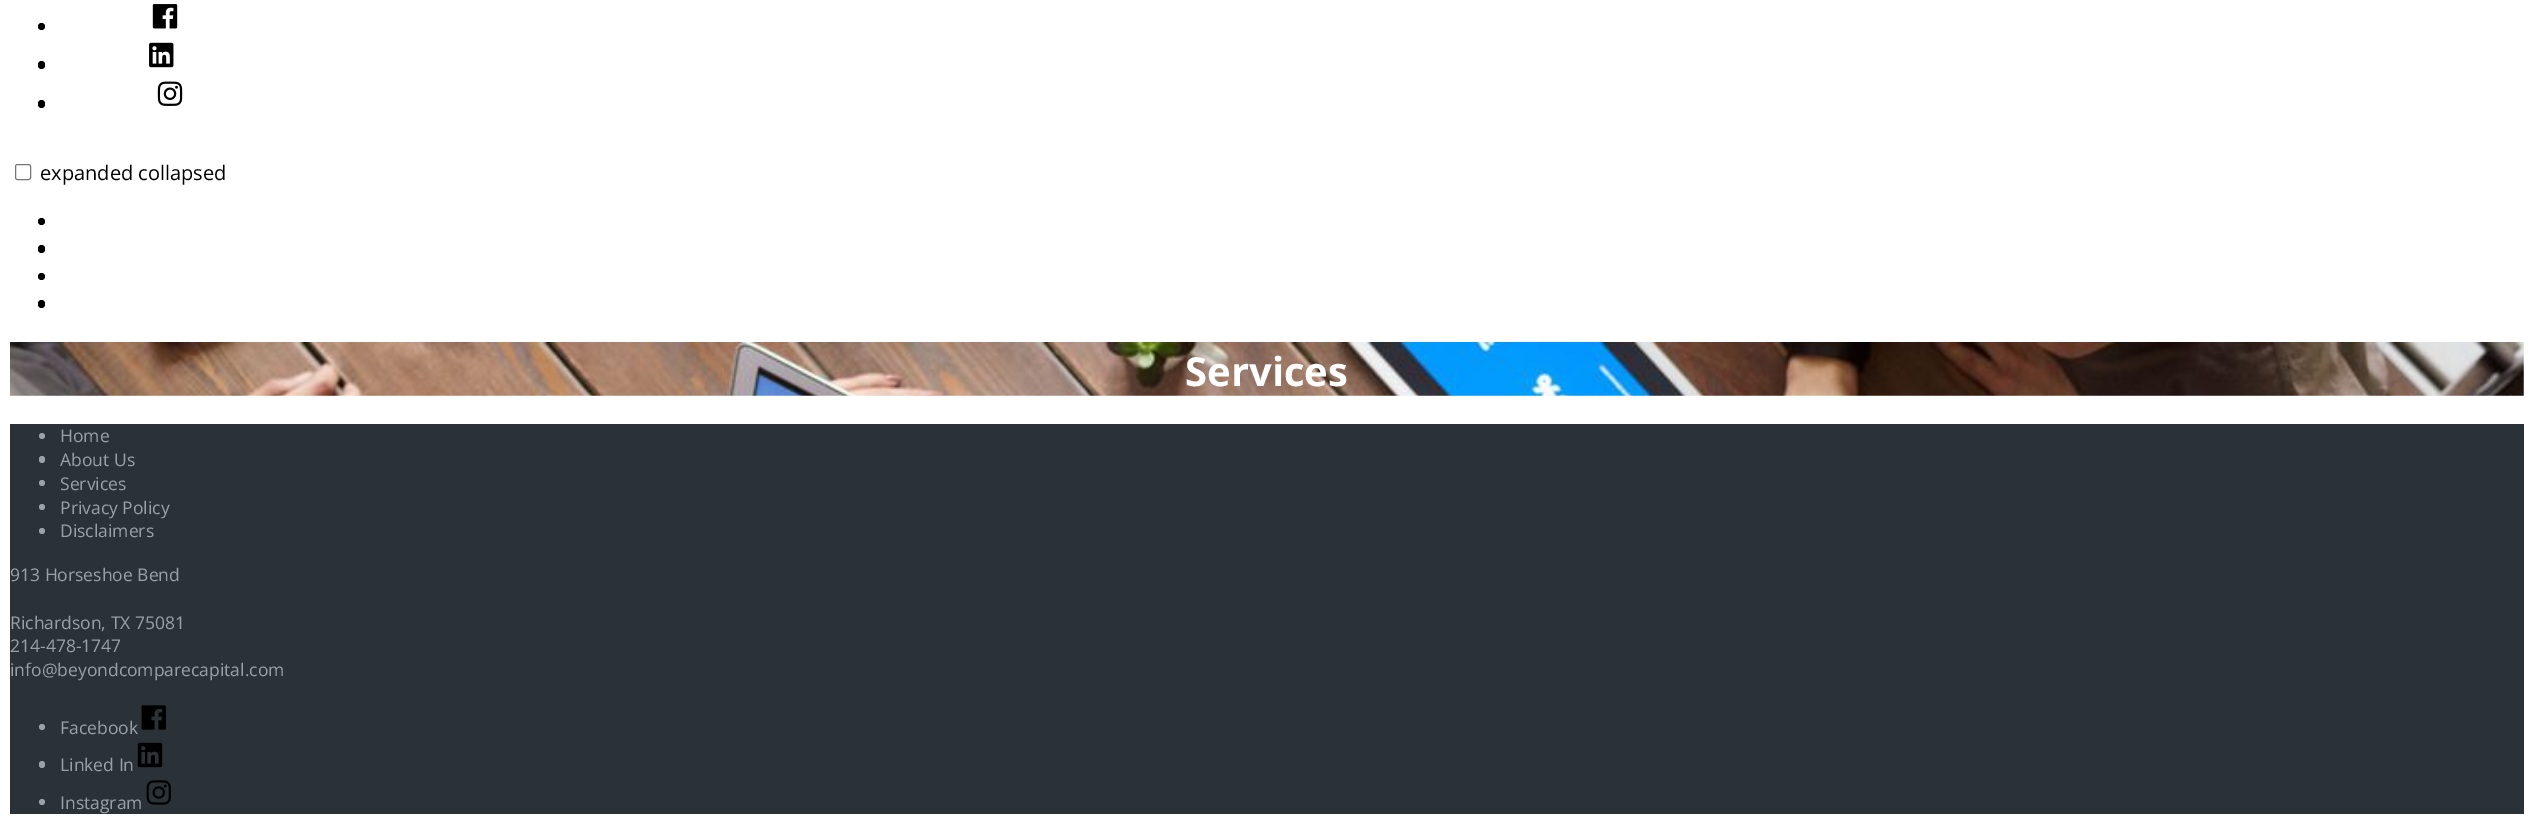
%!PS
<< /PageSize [2533 833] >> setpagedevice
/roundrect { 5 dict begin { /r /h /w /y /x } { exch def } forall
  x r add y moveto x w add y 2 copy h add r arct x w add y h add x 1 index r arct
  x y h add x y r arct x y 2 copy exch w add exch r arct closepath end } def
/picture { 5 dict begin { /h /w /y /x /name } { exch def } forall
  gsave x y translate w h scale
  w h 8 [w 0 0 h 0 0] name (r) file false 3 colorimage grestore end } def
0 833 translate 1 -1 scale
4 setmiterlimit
1 setgray
0 0 2533 833 rectfill
0 setgray
newpath 41.5 26.5 3.5 0 360 arc closepath fill
(img1.rgb) 152 4 26 25 picture
38 61 7 8 3.5 roundrect fill
(img2.rgb) 149 42 25 26 picture
38 100 7 8 3.5 roundrect fill
(img3.rgb) 157 81 26 25 picture
0.463 setgray
15.5 164.5 15 15 2 roundrect stroke
/OpenSans-Regular [20 0 0 -20 0 0] selectfont
0 setgray
40 180 moveto (expanded collapsed) show
newpath 41.5 221.5 3.5 0 360 arc closepath fill
38 245 7 8 3.5 roundrect fill
newpath 41.5 276.5 3.5 0 360 arc closepath fill
38 300 7 8 3.5 roundrect fill
(img4.rgb) 10 342 2514 54 picture
/OpenSans-Bold [40 0 0 -40 0 0] selectfont
1 setgray
1185 386 moveto (Services) show
0.165 0.196 0.22 setrgbcolor
10 424 2514 390 rectfill
0.604 0.635 0.659 setrgbcolor
newpath 42 436 3 0 360 arc closepath fill
/OpenSans-Regular [17.5 0 0 -17.5 0 0] selectfont
60 442 moveto (Home) show
39 456 6 7 3 roundrect fill
60 466 moveto (About Us) show
newpath 42 483 3 0 360 arc closepath fill
60 490 moveto (Services) show
newpath 42 507 3 0 360 arc closepath fill
60 514 moveto (Privacy Policy) show
newpath 42 531 3 0 360 arc closepath fill
60 537 moveto (Disclaimers) show
10 581 moveto (913 Horseshoe Bend) show
10 629 moveto (Richardson, TX 75081) show
10 652 moveto (214-478-1747) show
10 676 moveto (info@beyondcomparecapital.com) show
newpath 42 727 3 0 360 arc closepath fill
60 734 moveto (Facebook) show
(img5.rgb) 141 705 25 25 picture
39 761 6 7 3 roundrect fill
60 771 moveto (Linked In) show
(img6.rgb) 137 742 26 26 picture
newpath 42 802 3 0 360 arc closepath fill
60 809 moveto (Instagram) show
(img7.rgb) 146 780 25 25 picture
showpage
